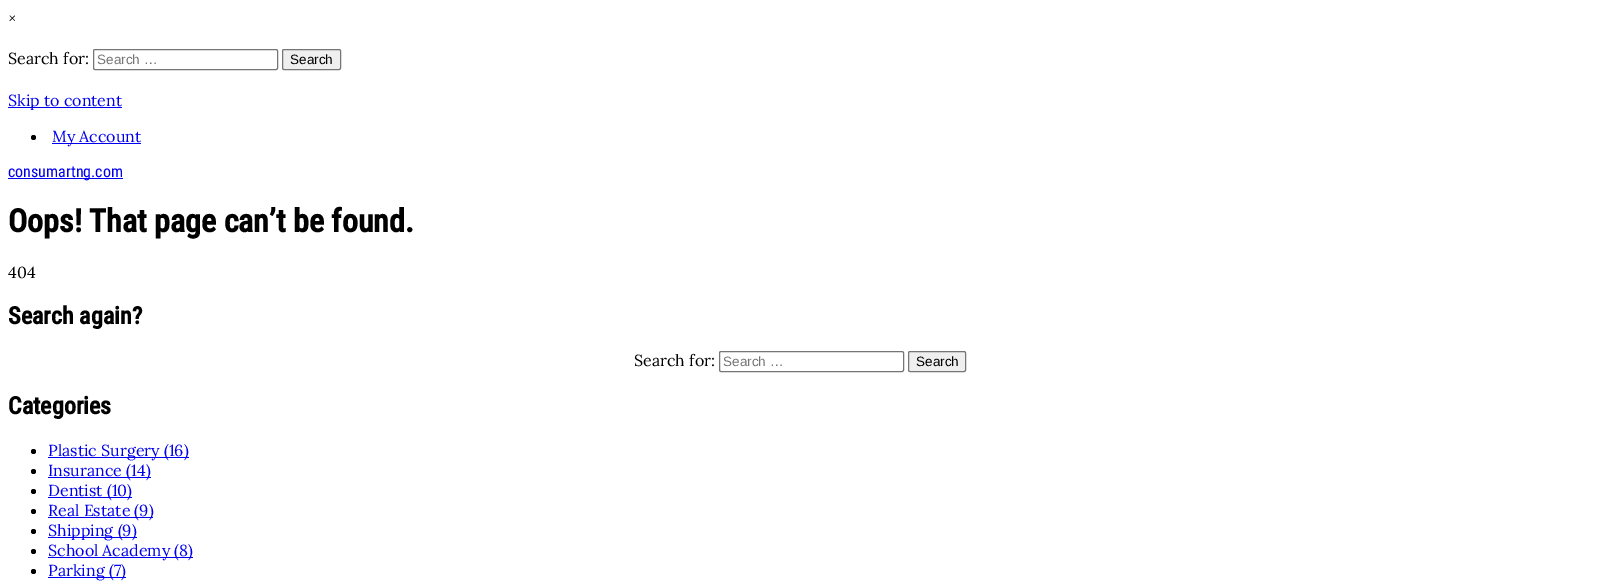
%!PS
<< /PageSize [1600 587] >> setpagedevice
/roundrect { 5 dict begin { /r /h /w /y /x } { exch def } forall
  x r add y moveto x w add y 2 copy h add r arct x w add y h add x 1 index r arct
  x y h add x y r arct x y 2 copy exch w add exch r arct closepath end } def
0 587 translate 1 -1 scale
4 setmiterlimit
1 setgray
0 0 1600 587 rectfill
/Lora-Regular [16 0 0 -16 0 0] selectfont
0 setgray
8 24 moveto (×) show
8 64 moveto (Search for:) show
0.463 setgray
93.5 49.5 184 20 1.5 roundrect stroke
/LiberationSans-Regular [13.5 0 0 -13.5 0 0] selectfont
0.459 setgray
97 64 moveto (Search …) show
0.937 setgray
282.5 49.5 58 20 1.5 roundrect gsave fill grestore
0.463 setgray
stroke
0 setgray
290 64 moveto (Search) show
0 0 0.933 setrgbcolor
8 107 114 1 rectfill
/Lora-Regular [16 0 0 -16 0 0] selectfont
8 106 moveto (Skip to content) show
0 setgray
newpath 33.5 137.5 2.5 0 360 arc closepath fill
0 0 0.933 setrgbcolor
52 143 89 1 rectfill
52 142 moveto (My Account) show
8 178 115 1 rectfill
/RobotoCondensed-Regular [16 0 0 -16 0 0] selectfont
8 177 moveto (consumartng.com) show
/RobotoCondensed-Bold [32 0 0 -32 0 0] selectfont
0 setgray
8 232 moveto (Oops! That page can’t be found.) show
/Lora-Regular [16 0 0 -16 0 0] selectfont
8 278 moveto (404) show
/RobotoCondensed-Bold [24 0 0 -24 0 0] selectfont
8 324 moveto (Search again?) show
/Lora-Regular [16 0 0 -16 0 0] selectfont
634 366 moveto (Search for:) show
0.463 setgray
719.5 351.5 184 20 1.5 roundrect stroke
/LiberationSans-Regular [13.5 0 0 -13.5 0 0] selectfont
0.459 setgray
723 366 moveto (Search …) show
0.937 setgray
908.5 351.5 57 20 1.5 roundrect gsave fill grestore
0.463 setgray
stroke
0 setgray
916 366 moveto (Search) show
/RobotoCondensed-Bold [24 0 0 -24 0 0] selectfont
8 414 moveto (Categories) show
newpath 33.5 451.5 2.5 0 360 arc closepath fill
0 0 0.933 setrgbcolor
48 457 141 1 rectfill
/Lora-Regular [16 0 0 -16 0 0] selectfont
48 456 moveto (Plastic Surgery \(16\)) show
0 setgray
newpath 33.5 471.5 2.5 0 360 arc closepath fill
0 0 0.933 setrgbcolor
48 477 103 1 rectfill
48 476 moveto (Insurance \(14\)) show
0 setgray
newpath 33.5 491.5 2.5 0 360 arc closepath fill
0 0 0.933 setrgbcolor
48 497 84 1 rectfill
48 496 moveto (Dentist \(10\)) show
0 setgray
newpath 33.5 511.5 2.5 0 360 arc closepath fill
0 0 0.933 setrgbcolor
48 517 105 1 rectfill
48 516 moveto (Real Estate \(9\)) show
0 setgray
newpath 33.5 531.5 2.5 0 360 arc closepath fill
0 0 0.933 setrgbcolor
48 537 89 1 rectfill
48 536 moveto (Shipping \(9\)) show
0 setgray
newpath 33.5 551.5 2.5 0 360 arc closepath fill
0 0 0.933 setrgbcolor
48 557 145 1 rectfill
48 556 moveto (School Academy \(8\)) show
0 setgray
newpath 33.5 571.5 2.5 0 360 arc closepath fill
0 0 0.933 setrgbcolor
48 577 78 1 rectfill
48 576 moveto (Parking \(7\)) show
showpage
